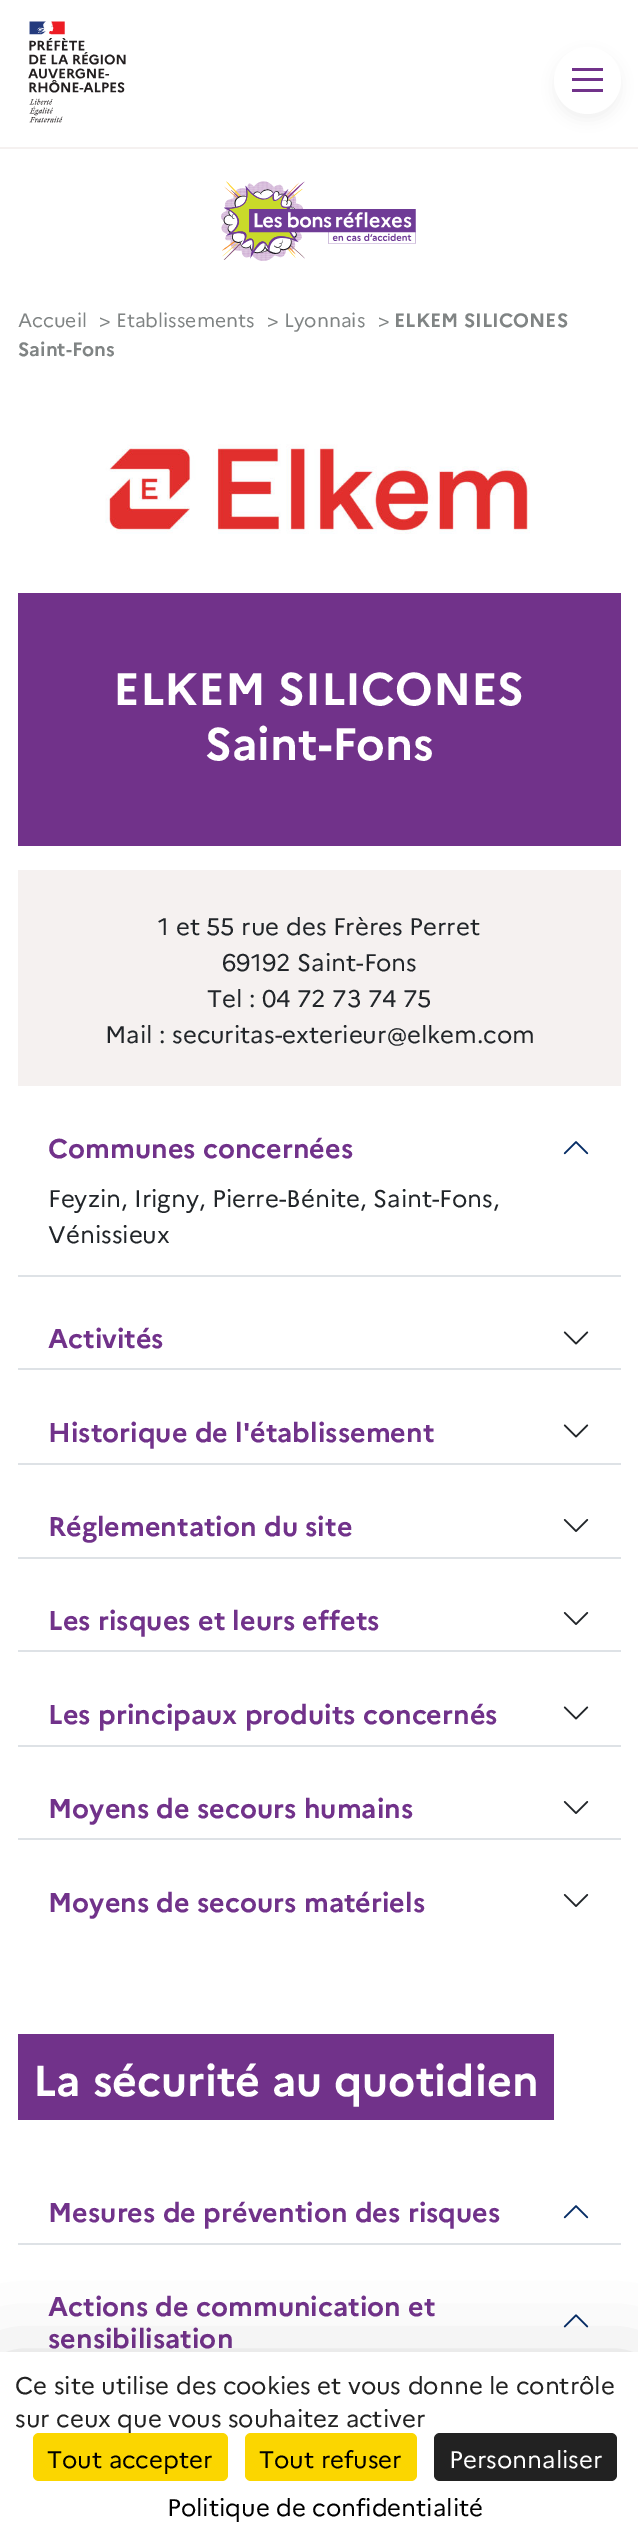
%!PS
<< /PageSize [638 2544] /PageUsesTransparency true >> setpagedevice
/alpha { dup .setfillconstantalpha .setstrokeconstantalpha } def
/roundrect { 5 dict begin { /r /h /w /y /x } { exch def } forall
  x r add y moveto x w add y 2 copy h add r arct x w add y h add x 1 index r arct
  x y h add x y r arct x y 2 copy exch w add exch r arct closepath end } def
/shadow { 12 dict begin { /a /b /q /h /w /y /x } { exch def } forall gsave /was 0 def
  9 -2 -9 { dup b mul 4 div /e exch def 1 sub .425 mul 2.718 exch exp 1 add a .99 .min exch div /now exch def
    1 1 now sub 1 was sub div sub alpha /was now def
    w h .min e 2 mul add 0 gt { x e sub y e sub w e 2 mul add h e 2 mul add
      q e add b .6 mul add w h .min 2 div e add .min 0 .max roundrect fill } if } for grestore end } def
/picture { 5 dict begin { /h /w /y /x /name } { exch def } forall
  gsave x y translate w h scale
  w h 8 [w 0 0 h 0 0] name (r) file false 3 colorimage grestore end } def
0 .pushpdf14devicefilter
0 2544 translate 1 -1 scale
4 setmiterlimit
1 setgray
0 0 638 2544 rectfill
0.961 0.945 0.941 setrgbcolor
0 147 638 2 rectfill
(img1.rgb) 28 21 98 102 picture
0 setgray
554 53 67 67 33.5 7.5 0.06 shadow
1 setgray
newpath 587.5 80.5 33.5 0 360 arc closepath fill
0.443 0.196 0.541 setrgbcolor
572 68 31 3 rectfill
572 78 31 3 rectfill
572 89 31 3 rectfill
(img2.rgb) 221 181 195 80 picture
/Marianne-Regular [19.25 0 0 -19.25 0 0] selectfont
0.502 0.518 0.518 setrgbcolor
18 327 moveto (Accueil) show
99 327 moveto (> Etablissements) show
267 327 moveto (> Lyonnais) show
378 327 moveto (>) show
/Marianne-Bold [19.25 0 0 -19.25 0 0] selectfont
394 327 moveto (ELKEM SILICONES) show
18 356 moveto (Saint-Fons) show
(img3.rgb) 105 444 425 90 picture
0.443 0.196 0.541 setrgbcolor
18 593 603 253 rectfill
/Marianne-Bold [45.5 0 0 -45.5 0 0] selectfont
1 setgray
113 705 moveto (ELKEM SILICONES) show
205 760 moveto (Saint-Fons) show
0.961 0.945 0.941 setrgbcolor
18 870 603 216 rectfill
/Marianne-Regular [24 0 0 -24 0 0] selectfont
0.129 0.145 0.161 setrgbcolor
158 935 moveto (1 et 55 rue des Frères Perret) show
222 971 moveto (69192 Saint-Fons) show
207 1007 moveto (Tel : 04 72 73 74 75) show
105 1043 moveto (Mail : securitas-exterieur@elkem.com) show
0.871 0.886 0.902 setrgbcolor
18 1275 603 2 rectfill
/Marianne-Bold [27 0 0 -27 0 0] selectfont
0.443 0.196 0.541 setrgbcolor
48 1158 moveto (Communes concernées) show
(img4.rgb) 563 1141 26 14 picture
/Marianne-Regular [24 0 0 -24 0 0] selectfont
0.129 0.145 0.161 setrgbcolor
48 1207 moveto (Feyzin, Irigny, Pierre-Bénite, Saint-Fons,) show
48 1243 moveto (Vénissieux) show
0.871 0.886 0.902 setrgbcolor
18 1368 603 2 rectfill
/Marianne-Bold [27 0 0 -27 0 0] selectfont
0.443 0.196 0.541 setrgbcolor
48 1348 moveto (Activités) show
(img5.rgb) 563 1331 26 14 picture
0.871 0.886 0.902 setrgbcolor
18 1463 603 2 rectfill
0.443 0.196 0.541 setrgbcolor
48 1442 moveto (Historique de l'établissement) show
(img5.rgb) 563 1424 26 14 picture
0.871 0.886 0.902 setrgbcolor
18 1557 603 2 rectfill
0.443 0.196 0.541 setrgbcolor
48 1536 moveto (Réglementation du site) show
(img6.rgb) 563 1519 26 13 picture
0.871 0.886 0.902 setrgbcolor
18 1650 603 2 rectfill
0.443 0.196 0.541 setrgbcolor
48 1630 moveto (Les risques et leurs effets) show
(img6.rgb) 563 1612 26 13 picture
0.871 0.886 0.902 setrgbcolor
18 1745 603 2 rectfill
0.443 0.196 0.541 setrgbcolor
48 1724 moveto (Les principaux produits concernés) show
(img5.rgb) 563 1706 26 14 picture
0.871 0.886 0.902 setrgbcolor
18 1838 603 2 rectfill
0.443 0.196 0.541 setrgbcolor
48 1818 moveto (Moyens de secours humains) show
(img6.rgb) 563 1801 26 13 picture
48 1912 moveto (Moyens de secours matériels) show
(img6.rgb) 563 1894 26 13 picture
18 2034 536 86 rectfill
/Marianne-Bold [43.25 0 0 -43.25 0 0] selectfont
1 setgray
33 2096 moveto (La sécurité au quotidien) show
0.871 0.886 0.902 setrgbcolor
18 2243 603 2 rectfill
/Marianne-Bold [27 0 0 -27 0 0] selectfont
0.443 0.196 0.541 setrgbcolor
48 2222 moveto (Mesures de prévention des risques) show
(img7.rgb) 563 2205 26 14 picture
48 2316 moveto (Actions de communication et) show
(img8.rgb) 563 2314 26 14 picture
48 2348 moveto (sensibilisation) show
0 setgray
0 2382 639 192 0 45 0.25 shadow
1 setgray
0 2352 638 192 rectfill
/Marianne-Regular [24 0 0 -24 0 0] selectfont
0.133 setgray
15 2394 moveto (Ce site utilise des cookies et vous donne le contrôle) show
15 2427 moveto (sur ceux que vous souhaitez activer) show
0.984 0.839 0 setrgbcolor
33 2433 195 48 6 roundrect fill
0 setgray
47 2468 moveto (Tout accepter) show
0.984 0.839 0 setrgbcolor
245 2433 172 48 6 roundrect fill
0 setgray
259 2468 moveto (Tout refuser) show
0.133 setgray
434 2433 183 48 6 roundrect fill
1 setgray
449 2468 moveto (Personnaliser) show
0 setgray
167 2516 moveto (Politique de confidentialité) show
.poppdf14devicefilter showpage
